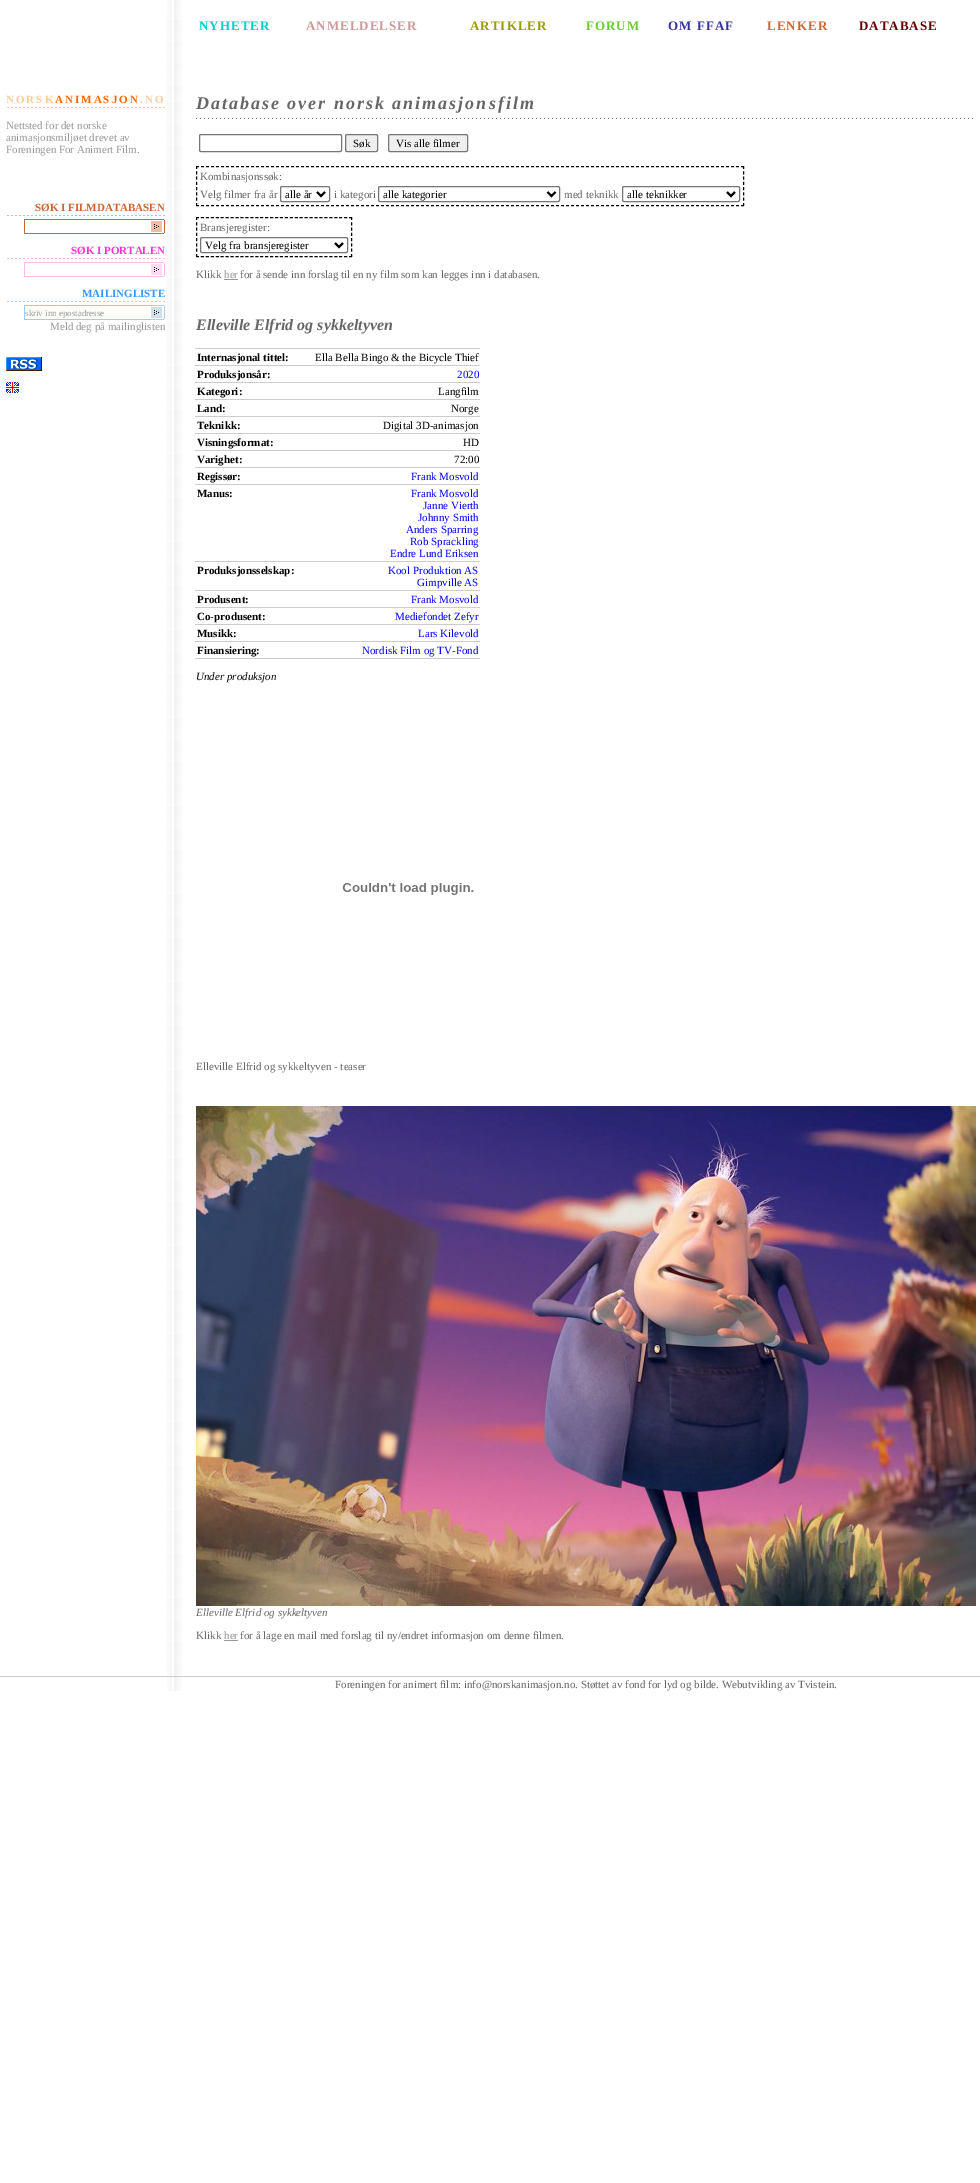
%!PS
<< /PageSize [980 2183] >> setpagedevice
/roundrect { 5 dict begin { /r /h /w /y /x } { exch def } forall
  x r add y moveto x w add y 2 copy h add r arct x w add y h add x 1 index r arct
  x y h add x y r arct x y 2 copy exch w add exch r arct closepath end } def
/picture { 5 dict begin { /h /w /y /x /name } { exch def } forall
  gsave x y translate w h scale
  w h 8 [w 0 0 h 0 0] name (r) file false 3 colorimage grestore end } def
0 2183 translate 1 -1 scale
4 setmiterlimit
1 setgray
0 0 980 2183 rectfill
(img1.rgb) 167 0 14 14 picture
(img2.rgb) 166 14 16 78 picture
/LiberationSerif-Bold [13 0 0 -13 0 0] selectfont
0 0.8 0.8 setrgbcolor
199 30 moveto 1 0 (NYHETER) ashow
0.8 0.6 0.6 setrgbcolor
306 30 moveto 1 0 (ANMELDELSER) ashow
0.6 0.6 0 setrgbcolor
470 30 moveto 1 0 (ARTIKLER) ashow
0.4 0.8 0.2 setrgbcolor
586 30 moveto 1 0 (FORUM) ashow
0.2 0.2 0.6 setrgbcolor
668 30 moveto 1 0 (OM FFAF) ashow
0.8 0.4 0.2 setrgbcolor
767 30 moveto 1 0 (LENKER) ashow
0.4 0 0 setrgbcolor
859 30 moveto 1 0 (DATABASE) ashow
(img3.rgb) 166 92 16 1584 picture
(img4.rgb) 7 107 158 1 picture
/LiberationSerif-Bold [11 0 0 -11 0 0] selectfont
1 0.8 0.6 setrgbcolor
6 103 moveto 2 0 (NORSK) ashow
1 0.4 0 setrgbcolor
55 103 moveto 2 0 (ANIMASJON) ashow
1 0.8 0.6 setrgbcolor
140 103 moveto 2 0 (.NO) ashow
/LiberationSerif-Regular [11 0 0 -11 0 0] selectfont
0.6 setgray
6 129 moveto (Nettsted for det norske) show
6 141 moveto (animasjonsmiljøet drevet av) show
6 153 moveto (Foreningen For Animert Film.) show
(img5.rgb) 7 215 158 1 picture
/LiberationSerif-Bold [11 0 0 -11 0 0] selectfont
0.8 0.4 0.2 setrgbcolor
35 211 moveto (SØK I FILMDATABASEN) show
24 219 127 1 rectfill
24 233 127 1 rectfill
24 219 1 15 rectfill
(img6.rgb) 151 219 14 15 picture
(img7.rgb) 7 258 158 1 picture
1 0.2 0.8 setrgbcolor
71 254 moveto (SØK I PORTALEN) show
1 0.741 0.914 setrgbcolor
24 262 127 1 rectfill
24 276 127 1 rectfill
24 262 1 15 rectfill
(img8.rgb) 151 262 14 15 picture
(img9.rgb) 7 301 158 1 picture
0.2 0.6 1 setrgbcolor
82 297 moveto (MAILINGLISTE) show
0.6 0.8 1 setrgbcolor
24 305 127 1 rectfill
24 319 127 1 rectfill
24 305 1 15 rectfill
/LiberationSerif-Regular [9 0 0 -9 0 0] selectfont
0.6 setgray
25 316 moveto (skriv inn epostadresse) show
(img10.rgb) 151 305 14 15 picture
/LiberationSerif-Regular [11 0 0 -11 0 0] selectfont
50 330 moveto (Meld deg på mailinglisten) show
(img11.rgb) 6 357 36 14 picture
(img12.rgb) 6 382 13 11 picture
(img13.rgb) 196 118 777 1 picture
/LiberationSerif-BoldItalic [18 0 0 -18 0 0] selectfont
0.4 setgray
196 109 moveto 2 0 (Database over norsk animasjonsfilm) ashow
0.463 setgray
199.5 134.5 142 17 1.5 roundrect stroke
0.937 setgray
345.5 134.5 32 17 1.5 roundrect gsave fill grestore
0.463 setgray
stroke
/LiberationSerif-Regular [11 0 0 -11 0 0] selectfont
0 setgray
353 147 moveto (Søk) show
0.937 setgray
388.5 134.5 79 17 1.5 roundrect gsave fill grestore
0.463 setgray
stroke
0 setgray
396 147 moveto (Vis alle filmer) show
[3 2] 0 setdash
newpath 196 166.5 moveto 744 166.5 lineto stroke
[3 2.29] 0 setdash
newpath 743.5 166 moveto 743.5 206 lineto stroke
[3 2] 0 setdash
newpath 196 205.5 moveto 744 205.5 lineto stroke
[3 2.29] 0 setdash
newpath 196.5 166 moveto 196.5 206 lineto stroke
0.4 setgray
200 180 moveto (Kombinasjonssøk:) show
200 198 moveto (Velg filmer fra år) show
0.463 setgray
[] 0 setdash
280.5 186.5 49 15 1.5 roundrect stroke
0 setgray
2 setlinewidth
newpath 317 192 moveto 321 196 lineto 325 192 lineto stroke
285 198 moveto (alle år) show
0.4 setgray
334 198 moveto (i kategori) show
0.463 setgray
1 setlinewidth
378.5 186.5 181 15 1.5 roundrect stroke
0 setgray
2 setlinewidth
newpath 547.5 192 moveto 551.5 196 lineto 555.5 192 lineto stroke
383 198 moveto (alle kategorier) show
0.4 setgray
564 198 moveto (med teknikk) show
0.463 setgray
1 setlinewidth
622.5 186.5 117 15 1.5 roundrect stroke
0 setgray
2 setlinewidth
newpath 727 192 moveto 731 196 lineto 735 192 lineto stroke
627 198 moveto (alle teknikker) show
1 setlinewidth
[3 1.94] 0 setdash
newpath 196 217.5 moveto 352 217.5 lineto stroke
[3 2.29] 0 setdash
newpath 351.5 217 moveto 351.5 257 lineto stroke
[3 1.94] 0 setdash
newpath 196 256.5 moveto 352 256.5 lineto stroke
[3 2.29] 0 setdash
newpath 196.5 217 moveto 196.5 257 lineto stroke
0.4 setgray
200 231 moveto (Bransjeregister:) show
0.463 setgray
[] 0 setdash
200.5 237.5 147 15 1.5 roundrect stroke
0 setgray
2 setlinewidth
newpath 335 243 moveto 339 247 lineto 343 243 lineto stroke
205 249 moveto (Velg fra bransjeregister) show
0.4 setgray
196 278 moveto (Klikk) show
0.6 setgray
224 278 moveto (her) show
224 279 14 1 rectfill
0.4 setgray
240 278 moveto (for å sende inn forslag til en ny film som kan legges inn i databasen.) show
/LiberationSerif-BoldItalic [16 0 0 -16 0 0] selectfont
196 330 moveto (Elleville Elfrid og sykkeltyven) show
/LiberationSerif-Bold [11 0 0 -11 0 0] selectfont
0 setgray
197 361 moveto (Internasjonal tittel:) show
0.8 setgray
195 348 285 1 rectfill
/LiberationSerif-Regular [11 0 0 -11 0 0] selectfont
0 setgray
315 361 moveto (Ella Bella Bingo & the Bicycle Thief) show
/LiberationSerif-Bold [11 0 0 -11 0 0] selectfont
197 378 moveto (Produksjonsår:) show
0.8 setgray
195 365 285 1 rectfill
/LiberationSerif-Regular [11 0 0 -11 0 0] selectfont
0 0 1 setrgbcolor
457 378 moveto (2020) show
/LiberationSerif-Bold [11 0 0 -11 0 0] selectfont
0 setgray
197 395 moveto (Kategori:) show
0.8 setgray
195 382 285 1 rectfill
/LiberationSerif-Regular [11 0 0 -11 0 0] selectfont
0 setgray
438 395 moveto (Langfilm) show
/LiberationSerif-Bold [11 0 0 -11 0 0] selectfont
197 412 moveto (Land:) show
0.8 setgray
195 399 285 1 rectfill
/LiberationSerif-Regular [11 0 0 -11 0 0] selectfont
0 setgray
451 412 moveto (Norge) show
/LiberationSerif-Bold [11 0 0 -11 0 0] selectfont
197 429 moveto (Teknikk:) show
0.8 setgray
195 416 285 1 rectfill
/LiberationSerif-Regular [11 0 0 -11 0 0] selectfont
0 setgray
383 429 moveto (Digital 3D-animasjon) show
/LiberationSerif-Bold [11 0 0 -11 0 0] selectfont
197 446 moveto (Visningsformat:) show
0.8 setgray
195 433 285 1 rectfill
/LiberationSerif-Regular [11 0 0 -11 0 0] selectfont
0 setgray
463 446 moveto (HD) show
/LiberationSerif-Bold [11 0 0 -11 0 0] selectfont
197 463 moveto (Varighet:) show
0.8 setgray
195 450 285 1 rectfill
/LiberationSerif-Regular [11 0 0 -11 0 0] selectfont
0 setgray
454 463 moveto (72:00) show
/LiberationSerif-Bold [11 0 0 -11 0 0] selectfont
197 480 moveto (Regissør:) show
0.8 setgray
195 467 285 1 rectfill
/LiberationSerif-Regular [11 0 0 -11 0 0] selectfont
0 0 1 setrgbcolor
411 480 moveto (Frank Mosvold) show
/LiberationSerif-Bold [11 0 0 -11 0 0] selectfont
0 setgray
197 497 moveto (Manus:) show
0.8 setgray
195 484 285 1 rectfill
/LiberationSerif-Regular [11 0 0 -11 0 0] selectfont
0 0 1 setrgbcolor
411 497 moveto (Frank Mosvold) show
423 509 moveto (Janne Vierth) show
418 521 moveto (Johnny Smith) show
406 533 moveto (Anders Sparring) show
410 545 moveto (Rob Sprackling) show
390 557 moveto (Endre Lund Eriksen) show
/LiberationSerif-Bold [11 0 0 -11 0 0] selectfont
0 setgray
197 574 moveto (Produksjonsselskap:) show
0.8 setgray
195 561 285 1 rectfill
/LiberationSerif-Regular [11 0 0 -11 0 0] selectfont
0 0 1 setrgbcolor
388 574 moveto (Kool Produktion AS) show
417 586 moveto (Gimpville AS) show
/LiberationSerif-Bold [11 0 0 -11 0 0] selectfont
0 setgray
197 603 moveto (Produsent:) show
0.8 setgray
195 590 285 1 rectfill
/LiberationSerif-Regular [11 0 0 -11 0 0] selectfont
0 0 1 setrgbcolor
411 603 moveto (Frank Mosvold) show
/LiberationSerif-Bold [11 0 0 -11 0 0] selectfont
0 setgray
197 620 moveto (Co-produsent:) show
0.8 setgray
195 607 285 1 rectfill
/LiberationSerif-Regular [11 0 0 -11 0 0] selectfont
0 0 1 setrgbcolor
395 620 moveto (Mediefondet Zefyr) show
/LiberationSerif-Bold [11 0 0 -11 0 0] selectfont
0 setgray
197 637 moveto (Musikk:) show
0.8 setgray
195 624 285 1 rectfill
/LiberationSerif-Regular [11 0 0 -11 0 0] selectfont
0 0 1 setrgbcolor
418 637 moveto (Lars Kilevold) show
/LiberationSerif-Bold [11 0 0 -11 0 0] selectfont
0 setgray
197 654 moveto (Finansiering:) show
0.8 setgray
195 641 285 1 rectfill
195 658 285 1 rectfill
/LiberationSerif-Regular [11 0 0 -11 0 0] selectfont
0 0 1 setrgbcolor
362 654 moveto (Nordisk Film og TV-Fond) show
/LiberationSerif-Italic [11 0 0 -11 0 0] selectfont
0 setgray
196 680 moveto (Under produksjon) show
(img14.rgb) 342 883 132 12 picture
/LiberationSerif-Regular [11 0 0 -11 0 0] selectfont
0.4 setgray
196 1070 moveto (Elleville Elfrid og sykkeltyven - teaser) show
(img15.rgb) 196 1106 780 500 picture
/LiberationSerif-Italic [11 0 0 -11 0 0] selectfont
196 1616 moveto (Elleville Elfrid og sykkeltyven) show
/LiberationSerif-Regular [11 0 0 -11 0 0] selectfont
196 1639 moveto (Klikk) show
0.6 setgray
224 1639 moveto (her) show
224 1640 14 1 rectfill
0.4 setgray
240 1639 moveto (for å lage en mail med forslag til ny/endret informasjon om denne filmen.) show
0.8 setgray
0 1676 980 1 rectfill
(img16.rgb) 167 1677 15 14 picture
0.4 setgray
335 1688 moveto (Foreningen for animert film: info@norskanimasjon.no. Støttet av fond for lyd og bilde. Webutvikling av Tvistein.) show
showpage
